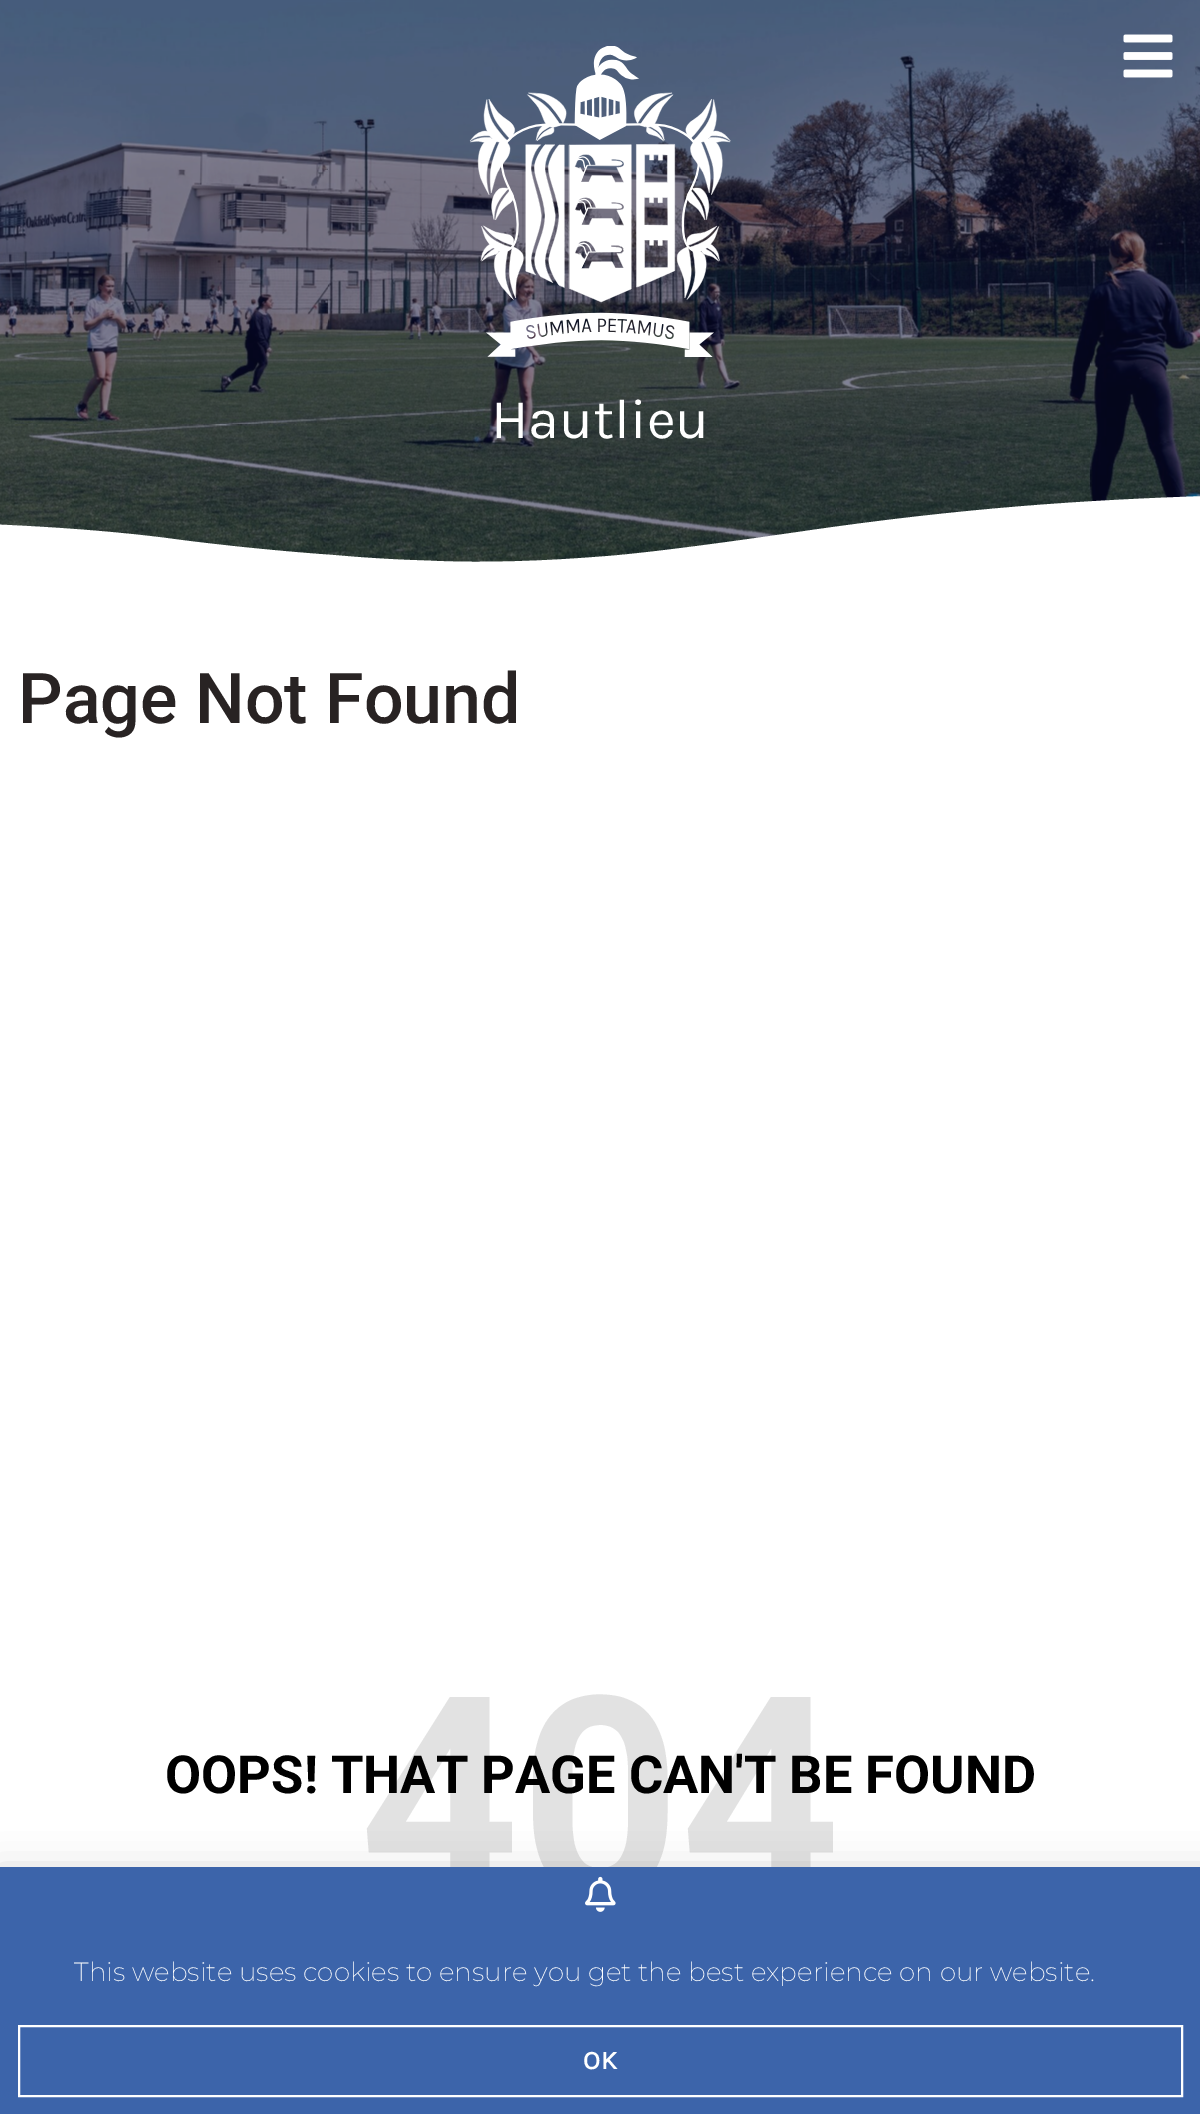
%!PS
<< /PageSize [1200 2114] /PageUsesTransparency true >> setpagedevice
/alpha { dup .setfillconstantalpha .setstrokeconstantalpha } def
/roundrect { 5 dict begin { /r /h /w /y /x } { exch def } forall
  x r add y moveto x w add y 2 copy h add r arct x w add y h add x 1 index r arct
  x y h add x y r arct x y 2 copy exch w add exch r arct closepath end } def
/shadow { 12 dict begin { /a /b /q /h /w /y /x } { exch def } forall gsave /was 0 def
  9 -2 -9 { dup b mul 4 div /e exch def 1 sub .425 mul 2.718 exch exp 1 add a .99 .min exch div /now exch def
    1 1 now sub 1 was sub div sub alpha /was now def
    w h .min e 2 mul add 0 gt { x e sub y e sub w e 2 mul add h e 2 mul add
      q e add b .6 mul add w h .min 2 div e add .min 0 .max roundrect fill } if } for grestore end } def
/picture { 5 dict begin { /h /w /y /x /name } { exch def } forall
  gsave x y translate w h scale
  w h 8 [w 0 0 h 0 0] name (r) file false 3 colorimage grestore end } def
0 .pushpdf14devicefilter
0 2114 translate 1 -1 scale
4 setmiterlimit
1 setgray
0 0 1200 2114 rectfill
(img1.rgb) 0 0 1200 562 picture
(img2.rgb) 1123 34 50 44 picture
(img3.rgb) 469 46 262 311 picture
/Karla-Regular [56 0 0 -56 0 0] selectfont
491 438 moveto (Hautlieu) show
gsave
0 494 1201 71 rectclip
newpath 437 561 moveto 484 563 545 561 595 557 curveto 644 554 743 540 805 531 curveto 963 508 1085 500 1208 496 curveto 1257 494 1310 493 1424 498 curveto 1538 502 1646 516 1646 516 curveto 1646 566 lineto -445 566 lineto -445 544 lineto -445 544 -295 520 -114 522 curveto -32 522 80 527 166 538 curveto 210 544 275 551 333 555 curveto 390 560 415 560 437 561 curveto closepath fill
grestore
/Roboto-Medium [70 0 0 -70 0 0] selectfont
0.157 0.137 0.137 setrgbcolor
18 723 moveto (Page Not Found) show
/Roboto-Bold [280 0 0 -280 0 0] selectfont
0.886 setgray
359 1896 moveto (404) show
/Roboto-Bold [52.5 0 0 -52.5 0 0] selectfont
0 setgray
165 1793 moveto (OOPS! THAT PAGE CAN'T BE FOUND) show
-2 1876 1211 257 0 20 0.2 shadow
0.235 0.392 0.667 setrgbcolor
0 1867 1200 247 rectfill
(img4.rgb) 585 1876 31 36 picture
/Montserrat-ExtraLight [26.25 0 0 -26.25 0 0] selectfont
1 setgray
74 1981 moveto (This website uses cookies to ensure you get the best experience on our website.) show
2 setlinewidth
19 2026 1163 70 rectstroke
/Karla-SemiBold [26.25 0 0 -26.25 0 0] selectfont
583 2069 moveto (OK) show
.poppdf14devicefilter showpage
